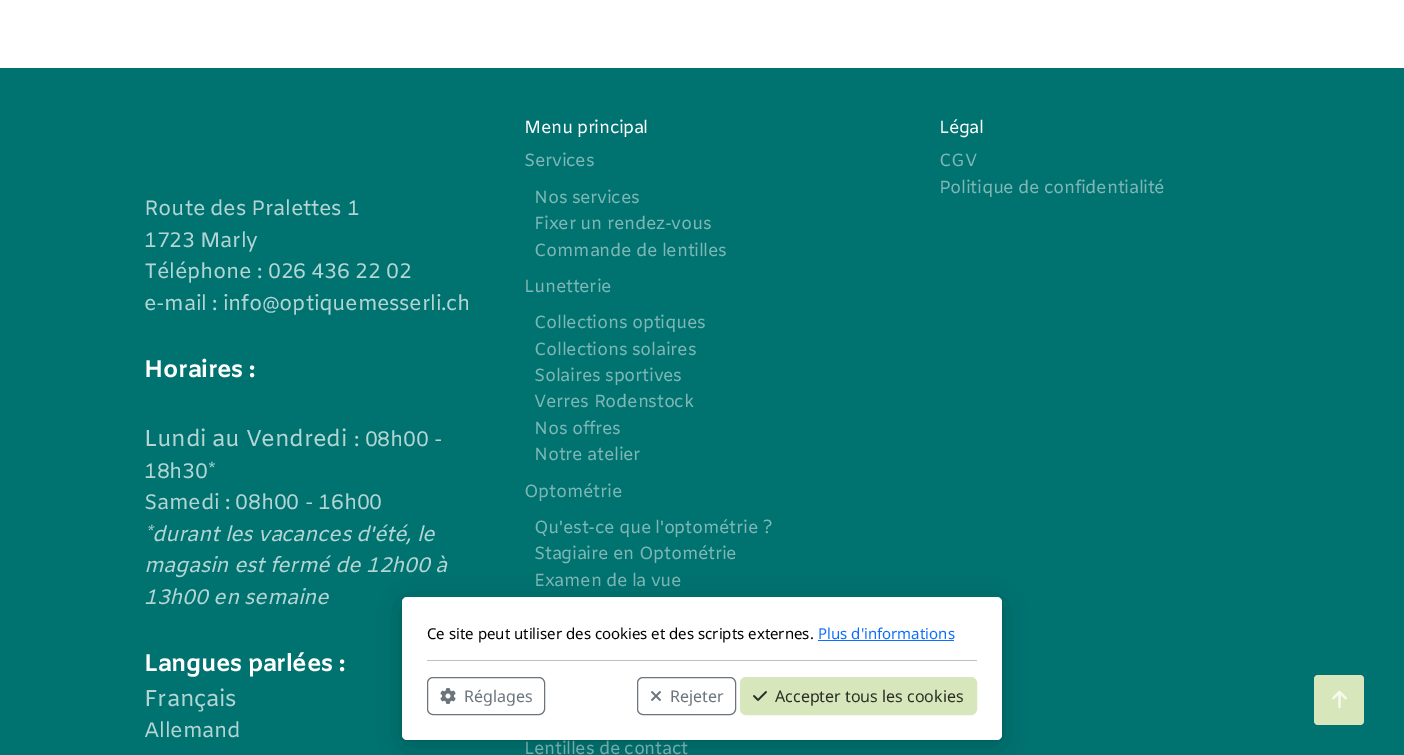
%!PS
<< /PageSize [1404 755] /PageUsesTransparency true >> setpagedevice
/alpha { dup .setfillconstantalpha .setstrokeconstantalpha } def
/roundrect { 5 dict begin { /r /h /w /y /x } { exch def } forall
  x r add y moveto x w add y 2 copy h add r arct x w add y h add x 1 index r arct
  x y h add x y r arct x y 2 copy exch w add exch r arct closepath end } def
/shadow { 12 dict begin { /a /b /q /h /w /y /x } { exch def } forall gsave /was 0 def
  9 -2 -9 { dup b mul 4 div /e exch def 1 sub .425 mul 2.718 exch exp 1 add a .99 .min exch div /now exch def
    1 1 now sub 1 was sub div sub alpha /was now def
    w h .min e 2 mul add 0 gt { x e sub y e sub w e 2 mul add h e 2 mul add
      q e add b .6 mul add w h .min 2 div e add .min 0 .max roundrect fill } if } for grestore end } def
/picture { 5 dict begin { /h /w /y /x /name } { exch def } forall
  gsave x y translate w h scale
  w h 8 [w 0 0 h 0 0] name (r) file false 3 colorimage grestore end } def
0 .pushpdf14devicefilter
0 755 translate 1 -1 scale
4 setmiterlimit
1 setgray
0 0 1404 755 rectfill
0 0.447 0.439 setrgbcolor
0 68 1404 687 rectfill
/Amiko-Regular [21 0 0 -21 0 0] selectfont
0.702 0.835 0.831 setrgbcolor
144 215 moveto -0.35 0 (Route des Pralettes 1) ashow
144 247 moveto -0.35 0 (1723 Marly) ashow
144 278 moveto -0.35 0 (Téléphone : 026 436 22 02) ashow
144 310 moveto -0.35 0 (e-mail : info@optiquemesserli.ch) ashow
/Amiko-Bold [24 0 0 -24 0 0] selectfont
1 setgray
144 377 moveto -0.35 0 (Horaires :) ashow
/Amiko-Regular [23 0 0 -23 0 0] selectfont
0.702 0.835 0.831 setrgbcolor
144 446 moveto -0.35 0 (Lundi au Vendredi) ashow
/Amiko-Regular [21 0 0 -21 0 0] selectfont
354 446 moveto -0.35 0 (: 08h00 -) ashow
144 478 moveto -0.35 0 (18h30*) ashow
144 509 moveto -0.35 0 (Samedi : 08h00 - 16h00) ashow
/Amiko-Italic [21 0 0 -21 0 0] selectfont
144 541 moveto -0.35 0 (*durant les vacances d'été, le) ashow
144 572 moveto -0.35 0 (magasin est fermé de 12h00 à) ashow
144 604 moveto -0.35 0 (13h00 en semaine) ashow
/Amiko-Bold [24 0 0 -24 0 0] selectfont
1 setgray
144 671 moveto -0.35 0 (Langues parlées :) ashow
/Amiko-Regular [23 0 0 -23 0 0] selectfont
0.702 0.835 0.831 setrgbcolor
144 706 moveto -0.35 0 (Français) ashow
/Amiko-Regular [21 0 0 -21 0 0] selectfont
144 737 moveto -0.35 0 (Allemand) ashow
/Amiko-Regular [17.6 0 0 -17.6 0 0] selectfont
1 setgray
524 133 moveto -0.5 0 (Menu principal) ashow
0.49 0.718 0.714 setrgbcolor
524 166 moveto -0.35 0 (Services) ashow
534 203 moveto -0.35 0 (Nos services) ashow
534 229 moveto -0.35 0 (Fixer un rendez-vous) ashow
534 256 moveto -0.35 0 (Commande de lentilles) ashow
524 292 moveto -0.35 0 (Lunetterie) ashow
534 328 moveto -0.35 0 (Collections optiques) ashow
534 355 moveto -0.35 0 (Collections solaires) ashow
534 381 moveto -0.35 0 (Solaires sportives) ashow
534 407 moveto -0.35 0 (Verres Rodenstock) ashow
534 434 moveto -0.35 0 (Nos offres) ashow
534 460 moveto -0.35 0 (Notre atelier) ashow
524 497 moveto -0.35 0 (Optométrie) ashow
534 533 moveto -0.35 0 (Qu'est-ce que l'optométrie ?) ashow
534 559 moveto -0.35 0 (Stagiaire en Optométrie) ashow
534 586 moveto -0.35 0 (Examen de la vue) ashow
524 754 moveto -0.35 0 (Lentilles de contact) ashow
1 setgray
939 133 moveto -0.5 0 (Légal) ashow
0.49 0.718 0.714 setrgbcolor
939 166 moveto -0.35 0 (CGV) ashow
939 193 moveto -0.35 0 (Politique de confidentialité) ashow
0 setgray
402 602 600 143 5 15 0.16 shadow
402 598 600 143 5 1.5 0.1 shadow
1 setgray
402 597 600 143 5 roundrect fill
/NotoSans-Regular [15 0 0 -15 0 0] selectfont
0 setgray
427 639 moveto (Ce site peut utiliser des cookies et des scripts externes.) show
0.051 0.431 0.992 setrgbcolor
818 639 moveto (Plus d'informations) show
818 640 136 1 rectfill
0.749 setgray
427 660 550 1 rectfill
0.424 0.459 0.49 setrgbcolor
427.5 677.5 117 37 5.5 roundrect stroke
(img1.rgb) 440 688 16 16 picture
/NotoSans-Regular [16 0 0 -16 0 0] selectfont
464 702 moveto (Réglages) show
637.5 677.5 98 37 5.5 roundrect stroke
(img2.rgb) 651 691 10 10 picture
670 702 moveto (Rejeter) show
0.847 0.906 0.733 setrgbcolor
740.5 677.5 236 37 5.5 roundrect gsave fill grestore
stroke
(img3.rgb) 753 691 14 10 picture
0.169 0.18 0.145 setrgbcolor
775 702 moveto (Accepter tous les cookies) show
0.847 0.906 0.733 setrgbcolor
1314 675 50 50 4 roundrect fill
(img4.rgb) 1332 690 15 19 picture
.poppdf14devicefilter showpage
